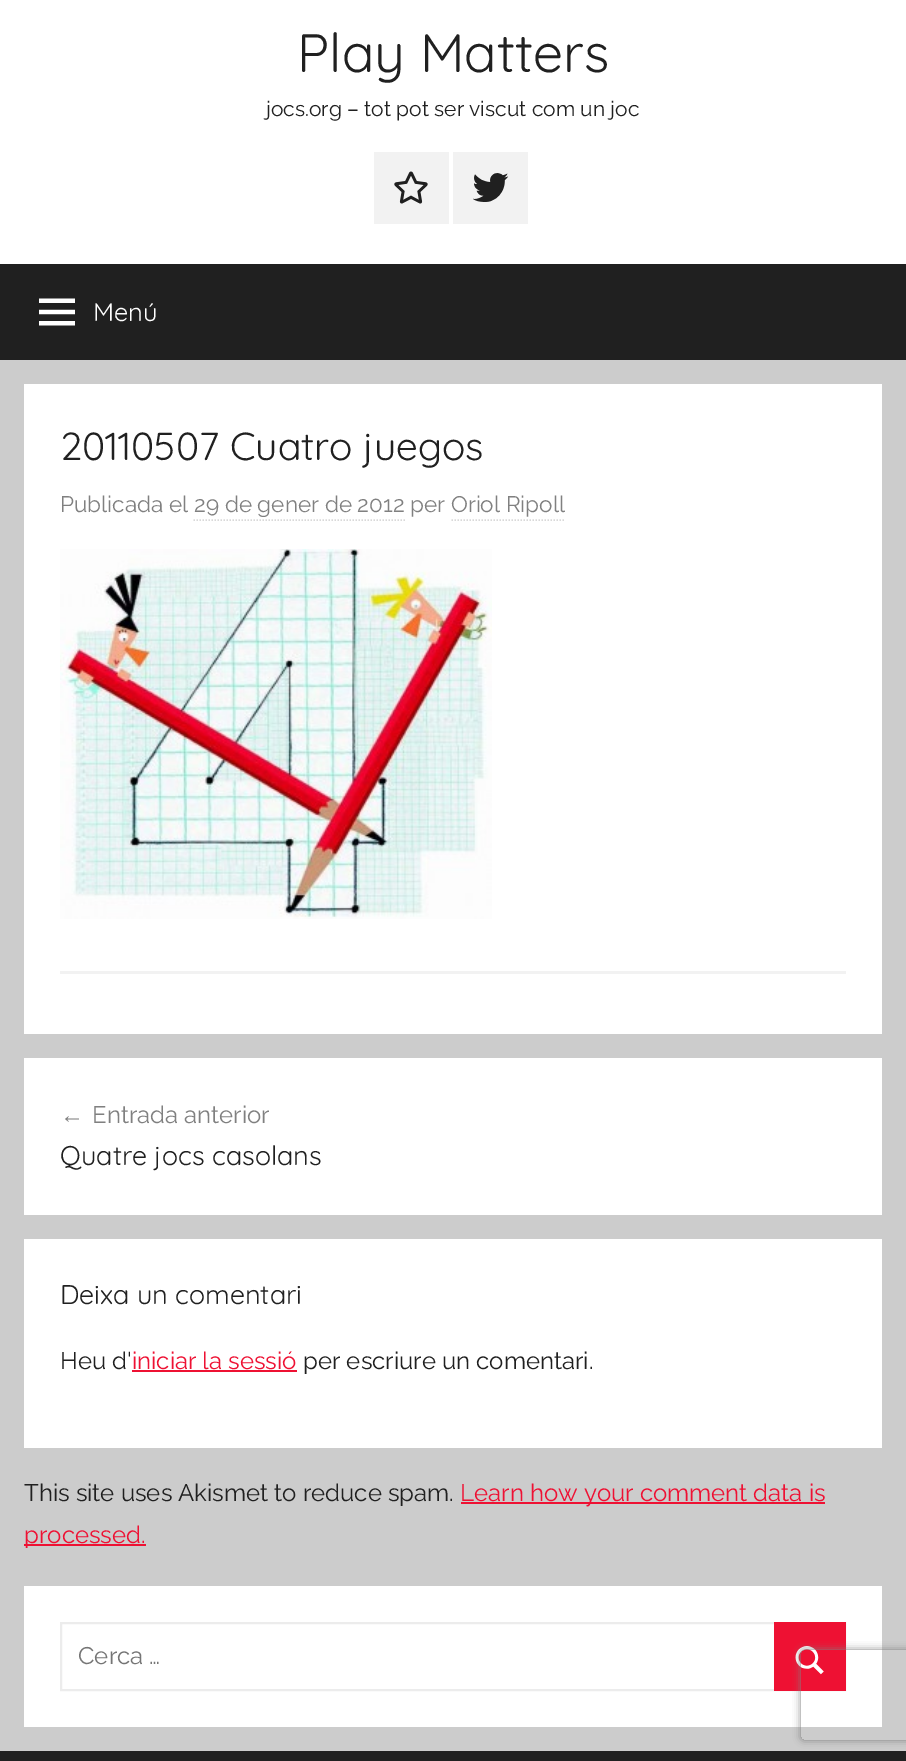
%!PS
<< /PageSize [906 1761] /PageUsesTransparency true >> setpagedevice
/alpha { dup .setfillconstantalpha .setstrokeconstantalpha } def
/roundrect { 5 dict begin { /r /h /w /y /x } { exch def } forall
  x r add y moveto x w add y 2 copy h add r arct x w add y h add x 1 index r arct
  x y h add x y r arct x y 2 copy exch w add exch r arct closepath end } def
/shadow { 12 dict begin { /a /b /q /h /w /y /x } { exch def } forall gsave /was 0 def
  9 -2 -9 { dup b mul 4 div /e exch def 1 sub .425 mul 2.718 exch exp 1 add a .99 .min exch div /now exch def
    1 1 now sub 1 was sub div sub alpha /was now def
    w h .min e 2 mul add 0 gt { x e sub y e sub w e 2 mul add h e 2 mul add
      q e add b .6 mul add w h .min 2 div e add .min 0 .max roundrect fill } if } for grestore end } def
/picture { 5 dict begin { /h /w /y /x /name } { exch def } forall
  gsave x y translate w h scale
  w h 8 [w 0 0 h 0 0] name (r) file false 3 colorimage grestore end } def
0 .pushpdf14devicefilter
0 1761 translate 1 -1 scale
4 setmiterlimit
0.8 setgray
0 0 906 1761 rectfill
1 setgray
0 0 906 264 rectfill
/Quicksand-Light [54 0 0 -54 0 0] selectfont
0.125 setgray
297 72 moveto (Play Matters) show
/Raleway-Thin [21 0 0 -21 0 0] selectfont
266 116 moveto (jocs.org – tot pot ser viscut com un joc) show
0.949 setgray
374 152 75 72 rectfill
(img1.rgb) 394 171 34 33 picture
453 152 75 72 rectfill
(img2.rgb) 473 173 36 29 picture
0.125 setgray
0 264 906 96 rectfill
(img3.rgb) 39 298 36 28 picture
/Quicksand-Light [25.5 0 0 -25.5 0 0] selectfont
1 setgray
93 321 moveto (Menú) show
24 384 858 650 rectfill
/Quicksand-Light [39 0 0 -39 0 0] selectfont
0.125 setgray
60 460 moveto (20110507 Cuatro juegos) show
/Raleway-Thin [22.5 0 0 -22.5 0 0] selectfont
0.502 setgray
60 512 moveto (Publicada el 29 de gener de 2012 per Oriol Ripoll) show
0.851 setgray
1.5 setlinewidth
[1.5 1.5] 0 setdash
newpath 193.5 520 moveto 405 520 lineto stroke
newpath 451.5 520 moveto 565.5 520 lineto stroke
(img4.rgb) 60 549 432 370 picture
0.949 setgray
60 971 786 3 rectfill
1 setgray
24 1058 858 157 rectfill
/LiberationSans-Regular [24 0 0 -24 0 0] selectfont
0.502 setgray
60 1123 moveto (←) show
/Raleway-Thin [24 0 0 -24 0 0] selectfont
92 1123 moveto (Entrada anterior) show
/Quicksand-Light [27 0 0 -27 0 0] selectfont
0.125 setgray
60 1165 moveto (Quatre jocs casolans) show
1 setgray
24 1239 858 209 rectfill
0.125 setgray
60 1304 moveto (Deixa un comentari) show
/Raleway-Thin [24 0 0 -24 0 0] selectfont
60 1369 moveto (Heu d') show
0.933 0.067 0.2 setrgbcolor
132 1369 moveto (iniciar la sessió) show
132 1370 165 2 rectfill
0.125 setgray
303 1369 moveto (per escriure un comentari.) show
24 1501 moveto (This site uses Akismet to reduce spam.) show
0.933 0.067 0.2 setrgbcolor
461 1502 364 2 rectfill
460 1501 moveto (Learn how your comment data is) show
24 1544 122 2 rectfill
24 1543 moveto (processed.) show
1 setgray
24 1586 858 141 rectfill
0.925 setgray
2 setlinewidth
[] 0 setdash
61 1623 784 67 rectstroke
0.459 setgray
78 1664 moveto (Cerca …) show
0.933 0.067 0.2 setrgbcolor
774 1622 72 69 rectfill
(img5.rgb) 795 1646 29 29 picture
0.125 setgray
0 1751 906 10 rectfill
gsave
newpath 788 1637 moveto 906 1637 lineto 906 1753 lineto 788 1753 lineto closepath 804 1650 moveto 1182 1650 lineto 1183.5 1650 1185 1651.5 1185 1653 curveto 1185 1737 lineto 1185 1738.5 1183.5 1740 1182 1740 curveto 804 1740 lineto 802.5 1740 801 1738.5 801 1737 curveto 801 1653 lineto 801 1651.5 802.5 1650 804 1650 curveto closepath eoclip newpath
0.502 setgray
801 1650 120 90 3 4 1 shadow
grestore
.poppdf14devicefilter showpage
